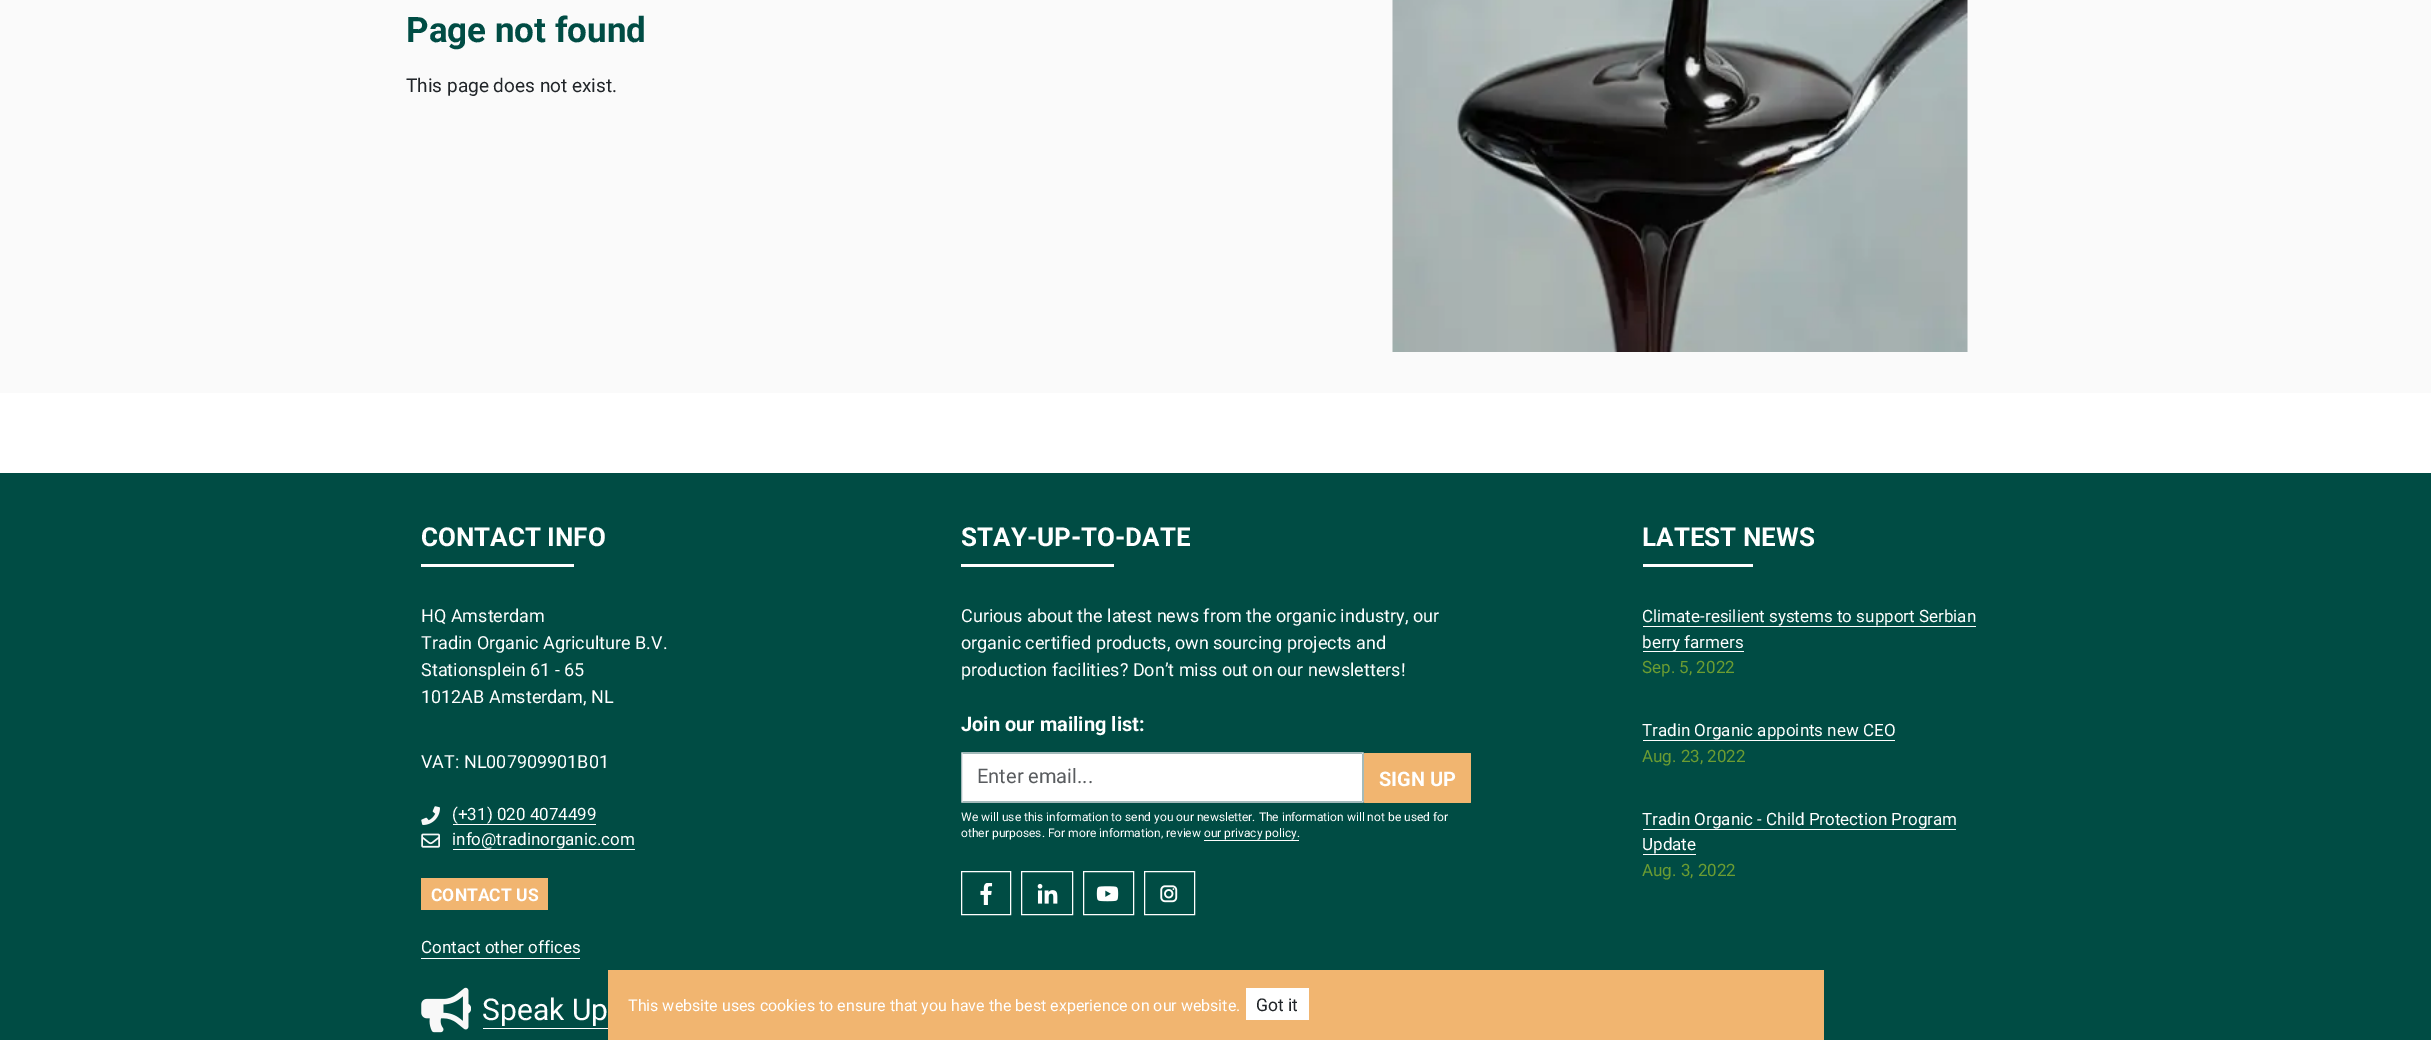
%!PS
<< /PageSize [2431 1040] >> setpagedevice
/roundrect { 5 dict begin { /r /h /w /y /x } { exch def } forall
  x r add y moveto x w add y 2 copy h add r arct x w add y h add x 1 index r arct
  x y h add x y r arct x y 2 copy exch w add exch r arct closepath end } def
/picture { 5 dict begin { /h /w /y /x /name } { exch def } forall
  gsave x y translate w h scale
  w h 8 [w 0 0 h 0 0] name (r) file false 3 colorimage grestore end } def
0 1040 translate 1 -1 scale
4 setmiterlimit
1 setgray
0 0 2431 1040 rectfill
0.98 setgray
0 0 2431 393 rectfill
/Roboto-Bold [35 0 0 -35 0 0] selectfont
0 0.298 0.267 setrgbcolor
406 42 moveto (Page not found) show
/Roboto-Regular [19 0 0 -19 0 0] selectfont
0.129 0.145 0.161 setrgbcolor
406 92 moveto (This page does not exist.) show
(img1.rgb) 1392 0 576 352 picture
0 0.298 0.267 setrgbcolor
0 473 2431 567 rectfill
/Roboto-Bold [26 0 0 -26 0 0] selectfont
1 setgray
421 546 moveto (CONTACT INFO) show
421 564 153 3 rectfill
/Roboto-Regular [18 0 0 -18 0 0] selectfont
421 622 moveto (HQ Amsterdam) show
421 649 moveto (Tradin Organic Agriculture B.V.) show
421 676 moveto (Stationsplein 61 - 65) show
421 703 moveto (1012AB Amsterdam, NL) show
421 768 moveto (VAT: NL007909901B01) show
(img2.rgb) 421 806 19 19 picture
/Roboto-Regular [17 0 0 -17 0 0] selectfont
452 820 moveto (\(+31\) 020 4074499) show
453 824 143 1 rectfill
(img3.rgb) 421 833 19 15 picture
452 845 moveto (info@tradinorganic.com) show
453 849 182 1 rectfill
0.945 0.71 0.439 setrgbcolor
newpath 423 878 moveto 546 878 lineto 548 878 lineto 548 910 lineto 423 910 lineto 421 910 lineto 421 878 lineto closepath fill
/Roboto-Bold [17.5 0 0 -17.5 0 0] selectfont
1 setgray
431 901 moveto (CONTACT US) show
/Roboto-Regular [17 0 0 -17 0 0] selectfont
421 953 moveto (Contact other offices) show
421 958 159 1 rectfill
(img4.rgb) 421 987 50 46 picture
/Roboto-Regular [30 0 0 -30 0 0] selectfont
482 1020 moveto (Speak Up) show
483 1028 132 1 rectfill
/Roboto-Bold [26 0 0 -26 0 0] selectfont
961 546 moveto (STAY-UP-TO-DATE) show
961 564 153 3 rectfill
/Roboto-Regular [18 0 0 -18 0 0] selectfont
961 622 moveto (Curious about the latest news from the organic industry, our) show
961 649 moveto (organic certified products, own sourcing projects and) show
961 676 moveto (production facilities? Don’t miss out on our newsletters!) show
/Roboto-Bold [20 0 0 -20 0 0] selectfont
961 731 moveto (Join our mailing list:) show
newpath 965 754 moveto 1362 754 lineto 1362 801 lineto 962 801 lineto 962 754 lineto closepath fill
0.871 0.886 0.902 setrgbcolor
1.2 setlinewidth
newpath 965.5 753 moveto 1363 753 lineto 1363 802 lineto 962 802 lineto 962 753 lineto closepath stroke
/Roboto-Regular [20 0 0 -20 0 0] selectfont
0.349 0.361 0.373 setrgbcolor
977 783 moveto (Enter email...) show
0.945 0.71 0.439 setrgbcolor
1364 753 107 50 1 roundrect fill
/Roboto-Bold [20 0 0 -20 0 0] selectfont
1 setgray
1379 786 moveto (SIGN UP) show
/Roboto-Regular [12 0 0 -12 0 0] selectfont
961 821 moveto (We will use this information to send you our newsletter. The information will not be used for) show
961 837 moveto (other purposes. For more information, review our privacy policy.) show
1204 840 95 1 rectfill
1 setlinewidth
961.5 871.5 49 43 rectstroke
(img5.rgb) 980 883 13 22 picture
1021.5 871.5 51 43 rectstroke
(img6.rgb) 1037 883 21 21 picture
1083.5 871.5 50 43 rectstroke
(img7.rgb) 1096 886 23 16 picture
1144.5 871.5 50 43 rectstroke
(img8.rgb) 1160 885 18 18 picture
/Roboto-Bold [26 0 0 -26 0 0] selectfont
1642 546 moveto (LATEST NEWS) show
1643 564 110 3 rectfill
/Roboto-Regular [17 0 0 -17 0 0] selectfont
1642 622 moveto (Climate-resilient systems to support Serbian) show
1643 626 333 1 rectfill
1643 651 101 1 rectfill
1642 648 moveto (berry farmers) show
0.424 0.612 0.196 setrgbcolor
1642 673 moveto (Sep. 5, 2022) show
1 setgray
1642 736 moveto (Tradin Organic appoints new CEO) show
1643 740 252 1 rectfill
0.424 0.612 0.196 setrgbcolor
1642 762 moveto (Aug. 23, 2022) show
1 setgray
1642 825 moveto (Tradin Organic - Child Protection Program) show
1643 829 313 1 rectfill
1642 850 moveto (Update) show
1643 854 53 1 rectfill
0.424 0.612 0.196 setrgbcolor
1642 876 moveto (Aug. 3, 2022) show
0.945 0.71 0.439 setrgbcolor
608 970 1216 70 rectfill
/Roboto-Regular [16 0 0 -16 0 0] selectfont
1 setgray
628 1011 moveto (This website uses cookies to ensure that you have the best experience on our website.) show
1246 988 63 32 rectfill
/Roboto-Regular [17.5 0 0 -17.5 0 0] selectfont
0.129 0.145 0.161 setrgbcolor
1256 1011 moveto (Got it) show
showpage
